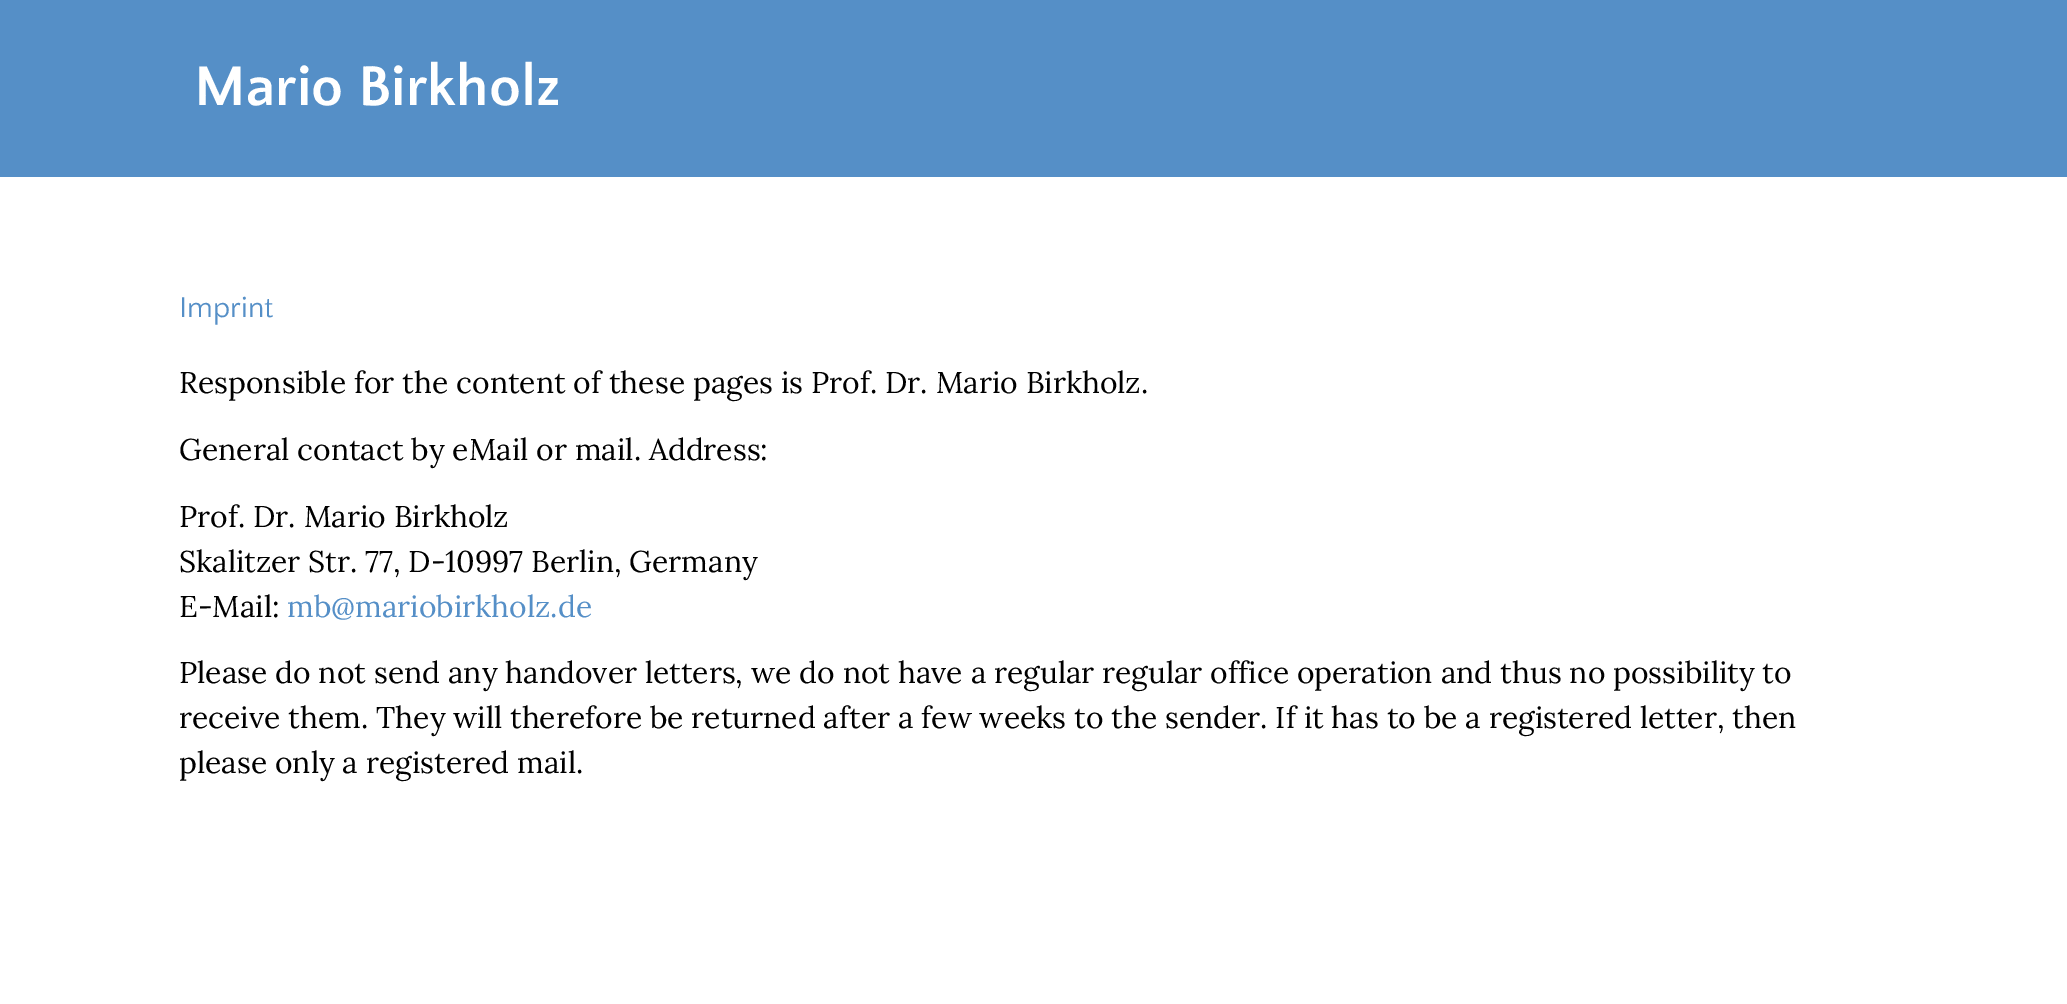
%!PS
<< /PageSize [2067 1004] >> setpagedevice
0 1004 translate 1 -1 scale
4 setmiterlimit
1 setgray
0 0 2067 1004 rectfill
0.333 0.561 0.78 setrgbcolor
0 0 2067 177 rectfill
/QuattrocentoSans-Bold [58.5 0 0 -58.5 0 0] selectfont
1 setgray
194 105 moveto (Mario Birkholz) show
/QuattrocentoSans-Regular [30 0 0 -30 0 0] selectfont
0.333 0.561 0.78 setrgbcolor
179 317 moveto (Imprint) show
/Lora-Regular [30 0 0 -30 0 0] selectfont
0 setgray
179 393 moveto (Responsible for the content of these pages is Prof. Dr. Mario Birkholz.) show
179 460 moveto (General contact by eMail or mail. Address:) show
179 527 moveto (Prof. Dr. Mario Birkholz) show
179 572 moveto (Skalitzer Str. 77, D-10997 Berlin, Germany) show
179 617 moveto (E-Mail:) show
0.333 0.561 0.78 setrgbcolor
287 617 moveto (mb@mariobirkholz.de) show
0 setgray
179 683 moveto (Please do not send any handover letters, we do not have a regular regular office operation and thus no possibility to) show
179 728 moveto (receive them. They will therefore be returned after a few weeks to the sender. If it has to be a registered letter, then) show
179 773 moveto (please only a registered mail.) show
showpage
